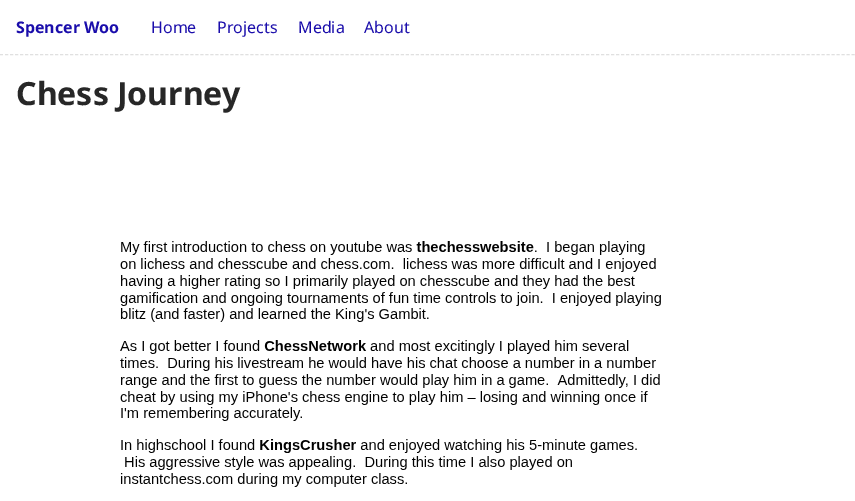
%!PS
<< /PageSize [855 501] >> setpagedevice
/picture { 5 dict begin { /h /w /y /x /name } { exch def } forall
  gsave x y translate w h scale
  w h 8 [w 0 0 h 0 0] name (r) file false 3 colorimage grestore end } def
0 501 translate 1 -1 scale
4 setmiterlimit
1 setgray
0 0 855 501 rectfill
0.878 setgray
[3 2.01] 0 setdash
newpath 0 54.5 moveto 855 54.5 lineto stroke
/NotoSans-Bold [16 0 0 -16 0 0] selectfont
0.102 0.051 0.671 setrgbcolor
16 33 moveto (Spencer Woo) show
/NotoSans-Regular [16 0 0 -16 0 0] selectfont
151 33 moveto (Home) show
217 33 moveto (Projects) show
298 33 moveto (Media) show
364 33 moveto (About) show
/NotoSans-Bold [32 0 0 -32 0 0] selectfont
0.153 setgray
16 105 moveto (Chess Journey) show
(img1.rgb) 120 241 541 246 picture
showpage
